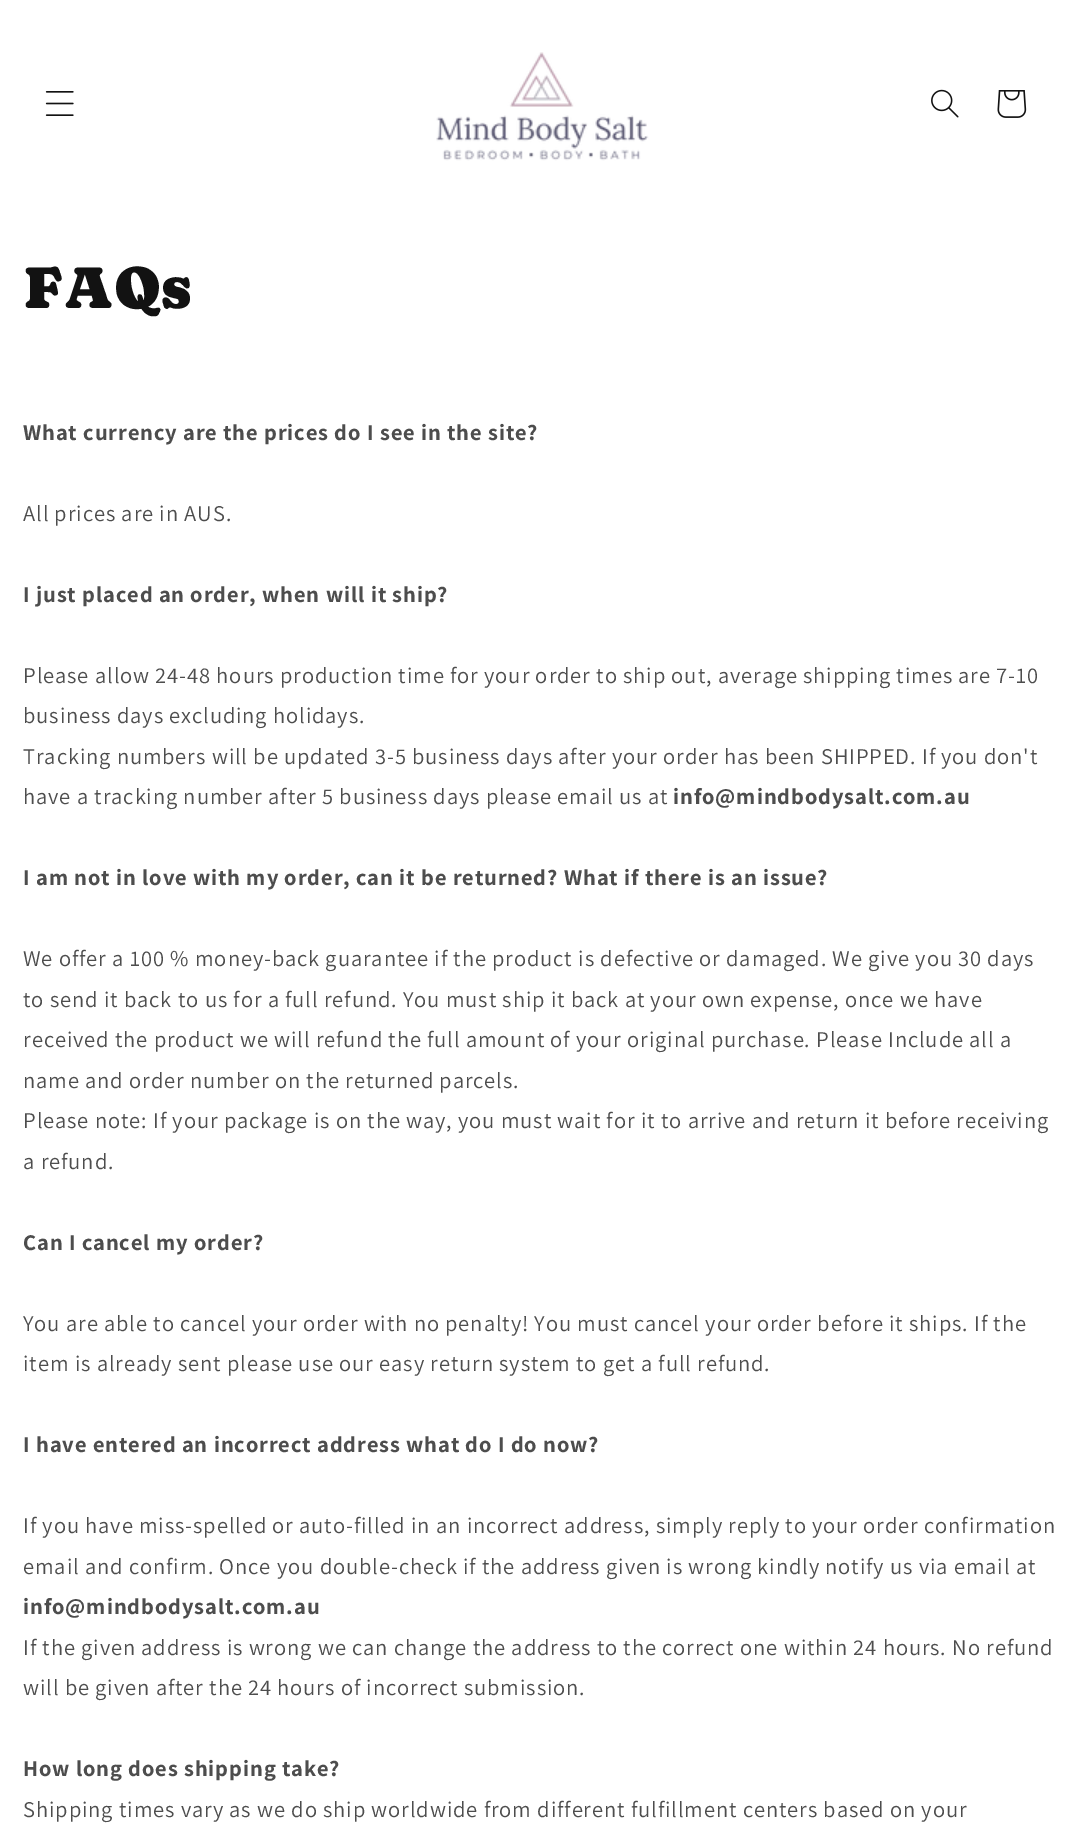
%!PS
<< /PageSize [1083 1839] >> setpagedevice
/picture { 5 dict begin { /h /w /y /x /name } { exch def } forall
  gsave x y translate w h scale
  w h 8 [w 0 0 h 0 0] name (r) file false 3 colorimage grestore end } def
0 1839 translate 1 -1 scale
4 setmiterlimit
1 setgray
0 0 1083 1839 rectfill
(img1.rgb) 45 91 29 25 picture
(img2.rgb) 436 52 213 109 picture
(img3.rgb) 931 89 28 29 picture
(img4.rgb) 997 90 30 28 picture
/Caprasimo-Regular [60 0 0 -60 0 0] selectfont
0.071 setgray
23 308 moveto 0.9 0 (FAQs) ashow
/Assistant-Bold [22.5 0 0 -22.5 0 0] selectfont
0.302 setgray
23 440 moveto 0.9 0 (What currency are the prices do I see in the site?) ashow
/Assistant-Regular [22.5 0 0 -22.5 0 0] selectfont
23 521 moveto 0.9 0 (All prices are in AUS.) ashow
/Assistant-Bold [22.5 0 0 -22.5 0 0] selectfont
23 602 moveto 0.9 0 (I just placed an order, when will it ship?) ashow
/Assistant-Regular [22.5 0 0 -22.5 0 0] selectfont
23 683 moveto 0.9 0 (Please allow 24-48 hours production time for your order to ship out, average shipping times are 7-10) ashow
23 723 moveto 0.9 0 (business days excluding holidays.) ashow
23 764 moveto 0.9 0 (Tracking numbers will be updated 3-5 business days after your order has been SHIPPED. If you don't) ashow
23 804 moveto 0.9 0 (have a tracking number after 5 business days please email us at) ashow
/Assistant-Bold [22.5 0 0 -22.5 0 0] selectfont
673 804 moveto 0.9 0 (info@mindbodysalt.com.au) ashow
23 885 moveto 0.9 0 (I am not in love with my order, can it be returned? What if there is an issue?) ashow
/Assistant-Regular [22.5 0 0 -22.5 0 0] selectfont
23 966 moveto 0.9 0 (We offer a 100 % money-back guarantee if the product is defective or damaged. We give you 30 days) ashow
23 1007 moveto 0.9 0 (to send it back to us for a full refund. You must ship it back at your own expense, once we have) ashow
23 1047 moveto 0.9 0 (received the product we will refund the full amount of your original purchase. Please Include all a) ashow
23 1088 moveto 0.9 0 (name and order number on the returned parcels.) ashow
23 1128 moveto 0.9 0 (Please note: If your package is on the way, you must wait for it to arrive and return it before receiving) ashow
23 1169 moveto 0.9 0 (a refund.) ashow
/Assistant-Bold [22.5 0 0 -22.5 0 0] selectfont
23 1250 moveto 0.9 0 (Can I cancel my order?) ashow
/Assistant-Regular [22.5 0 0 -22.5 0 0] selectfont
23 1331 moveto 0.9 0 (You are able to cancel your order with no penalty! You must cancel your order before it ships. If the) ashow
23 1371 moveto 0.9 0 (item is already sent please use our easy return system to get a full refund.) ashow
/Assistant-Bold [22.5 0 0 -22.5 0 0] selectfont
23 1452 moveto 0.9 0 (I have entered an incorrect address what do I do now?) ashow
/Assistant-Regular [22.5 0 0 -22.5 0 0] selectfont
23 1533 moveto 0.9 0 (If you have miss-spelled or auto-filled in an incorrect address, simply reply to your order confirmation) ashow
23 1574 moveto 0.9 0 (email and confirm. Once you double-check if the address given is wrong kindly notify us via email at) ashow
/Assistant-Bold [22.5 0 0 -22.5 0 0] selectfont
23 1614 moveto 0.9 0 (info@mindbodysalt.com.au) ashow
/Assistant-Regular [22.5 0 0 -22.5 0 0] selectfont
23 1655 moveto 0.9 0 (If the given address is wrong we can change the address to the correct one within 24 hours. No refund) ashow
23 1695 moveto 0.9 0 (will be given after the 24 hours of incorrect submission.) ashow
/Assistant-Bold [22.5 0 0 -22.5 0 0] selectfont
23 1776 moveto 0.9 0 (How long does shipping take?) ashow
/Assistant-Regular [22.5 0 0 -22.5 0 0] selectfont
23 1817 moveto 0.9 0 (Shipping times vary as we do ship worldwide from different fulfillment centers based on your) ashow
showpage
